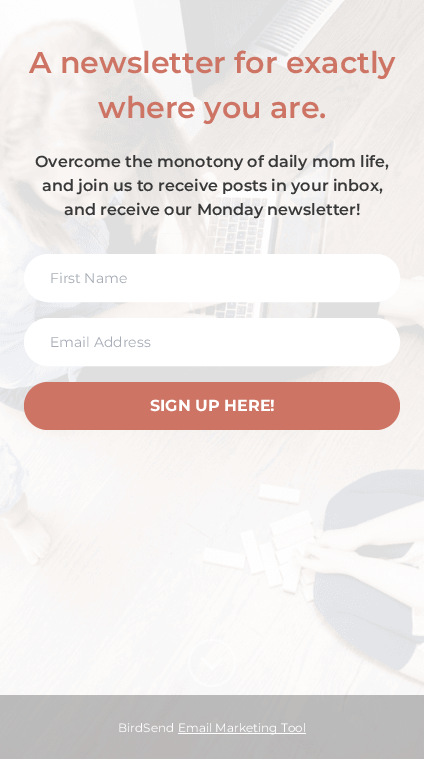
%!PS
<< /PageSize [424 759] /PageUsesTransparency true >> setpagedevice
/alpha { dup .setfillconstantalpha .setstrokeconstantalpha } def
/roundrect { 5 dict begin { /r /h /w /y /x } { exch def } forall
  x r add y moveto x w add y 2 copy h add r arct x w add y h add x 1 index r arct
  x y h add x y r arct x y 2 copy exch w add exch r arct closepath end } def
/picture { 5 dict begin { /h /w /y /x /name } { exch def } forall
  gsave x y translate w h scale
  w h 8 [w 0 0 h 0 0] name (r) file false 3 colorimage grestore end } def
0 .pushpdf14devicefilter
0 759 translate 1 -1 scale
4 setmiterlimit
1 setgray
0 0 424 759 rectfill
(img1.rgb) 0 0 424 759 picture
/Montserrat-SemiBold [30 0 0 -30 0 0] selectfont
0.804 0.455 0.392 setrgbcolor
29 73 moveto (A newsletter for exactly) show
98 118 moveto (where you are.) show
/Montserrat-SemiBold [16 0 0 -16 0 0] selectfont
0.22 setgray
35 167 moveto (Overcome the monotony of daily mom life,) show
42 191 moveto (and join us to receive posts in your inbox,) show
64 215 moveto (and receive our Monday newsletter!) show
1 setgray
25 255 374 46 23 roundrect gsave fill grestore
2 setlinewidth
stroke
/Montserrat-Regular [14 0 0 -14 0 0] selectfont
0.647 0.667 0.706 setrgbcolor
50 283 moveto (First Name) show
1 setgray
25 319 374 46 23 roundrect gsave fill grestore
stroke
0.647 0.667 0.706 setrgbcolor
50 347 moveto (Email Address) show
0.804 0.455 0.392 setrgbcolor
24 382 376 48 24 roundrect fill
/Montserrat-Bold [16 0 0 -16 0 0] selectfont
1 setgray
150 411 moveto (SIGN UP HERE!) show
0.5 alpha
newpath 212 663 23 0 360 arc closepath stroke
newpath 221 657 moveto 223.5 659 lineto 212 670.5 lineto 210 668 lineto closepath fill
newpath 203 657 moveto 214 668 lineto 212 670.5 lineto 200.5 659 lineto closepath fill
0.25 alpha
0 setgray
0 695 424 64 rectfill
/Montserrat-Regular [12 0 0 -12 0 0] selectfont
1 alpha
1 setgray
118 732 moveto (BirdSend) show
178 733 128 1 rectfill
178 732 moveto (Email Marketing Tool) show
.poppdf14devicefilter showpage
